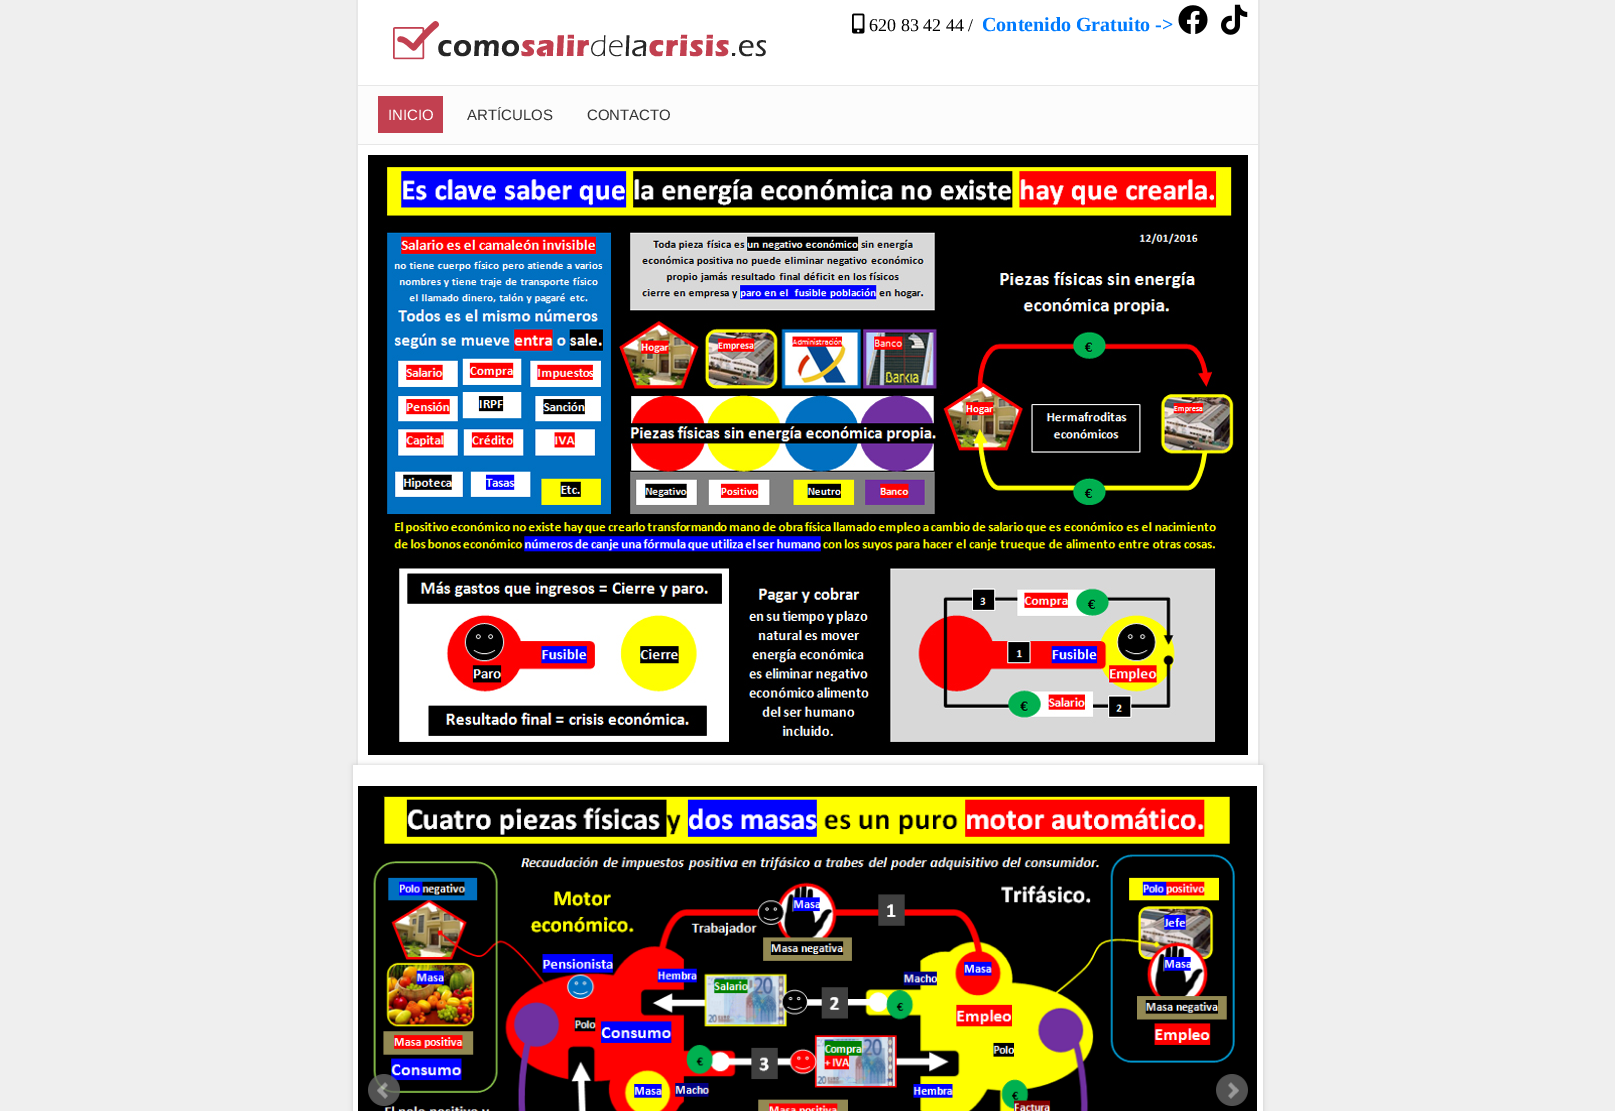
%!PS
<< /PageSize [1615 1111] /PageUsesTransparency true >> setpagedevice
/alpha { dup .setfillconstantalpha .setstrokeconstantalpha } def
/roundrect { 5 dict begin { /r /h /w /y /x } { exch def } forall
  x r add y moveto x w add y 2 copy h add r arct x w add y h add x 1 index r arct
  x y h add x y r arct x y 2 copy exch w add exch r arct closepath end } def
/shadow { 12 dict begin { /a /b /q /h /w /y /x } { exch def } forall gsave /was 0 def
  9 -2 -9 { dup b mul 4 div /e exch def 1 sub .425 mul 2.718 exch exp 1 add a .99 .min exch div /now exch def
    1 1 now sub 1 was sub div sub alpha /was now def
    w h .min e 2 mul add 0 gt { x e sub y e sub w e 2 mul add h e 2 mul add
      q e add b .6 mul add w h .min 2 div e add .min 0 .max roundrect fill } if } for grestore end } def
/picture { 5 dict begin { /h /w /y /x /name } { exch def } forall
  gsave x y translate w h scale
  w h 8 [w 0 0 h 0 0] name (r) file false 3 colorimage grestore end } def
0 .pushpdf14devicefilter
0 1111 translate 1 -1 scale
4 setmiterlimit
0.937 setgray
0 0 1615 1111 rectfill
0.988 setgray
358 86 900 58 rectfill
0.906 setgray
1258 0 2 765 rectfill
356 0 2 765 rectfill
1 setgray
358 0 900 85 rectfill
(img1.rgb) 393 21 373 39 picture
(img2.rgb) 852 13 13 21 picture
/LiberationSerif-Regular [18 0 0 -18 0 0] selectfont
0 setgray
869 31 moveto (620 83 42 44 /) show
/LiberationSerif-Bold [20 0 0 -20 0 0] selectfont
0 0.482 1 setrgbcolor
982 31 moveto (Contenido Gratuito ->) show
(img3.rgb) 1178 5 30 29 picture
(img4.rgb) 1221 4 27 31 picture
0.906 setgray
358 85 900 1 rectfill
358 144 900 1 rectfill
0.761 0.251 0.314 setrgbcolor
378 96 65 37 rectfill
/LiberationSans-Regular [15 0 0 -15 0 0] selectfont
1 setgray
388 120 moveto (INICIO) show
0.204 setgray
467 120 moveto (ARTÍCULOS) show
587 120 moveto (CONTACTO) show
1 setgray
358 145 900 620 rectfill
(img5.rgb) 368 155 880 600 picture
0.8 setgray
353 765 910 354 0 2.5 1 shadow
1 setgray
353 765 910 346 rectfill
(img6.rgb) 358 786 899 325 picture
(img7.rgb) 368 1074 32 32 picture
(img8.rgb) 1216 1074 32 32 picture
.poppdf14devicefilter showpage
